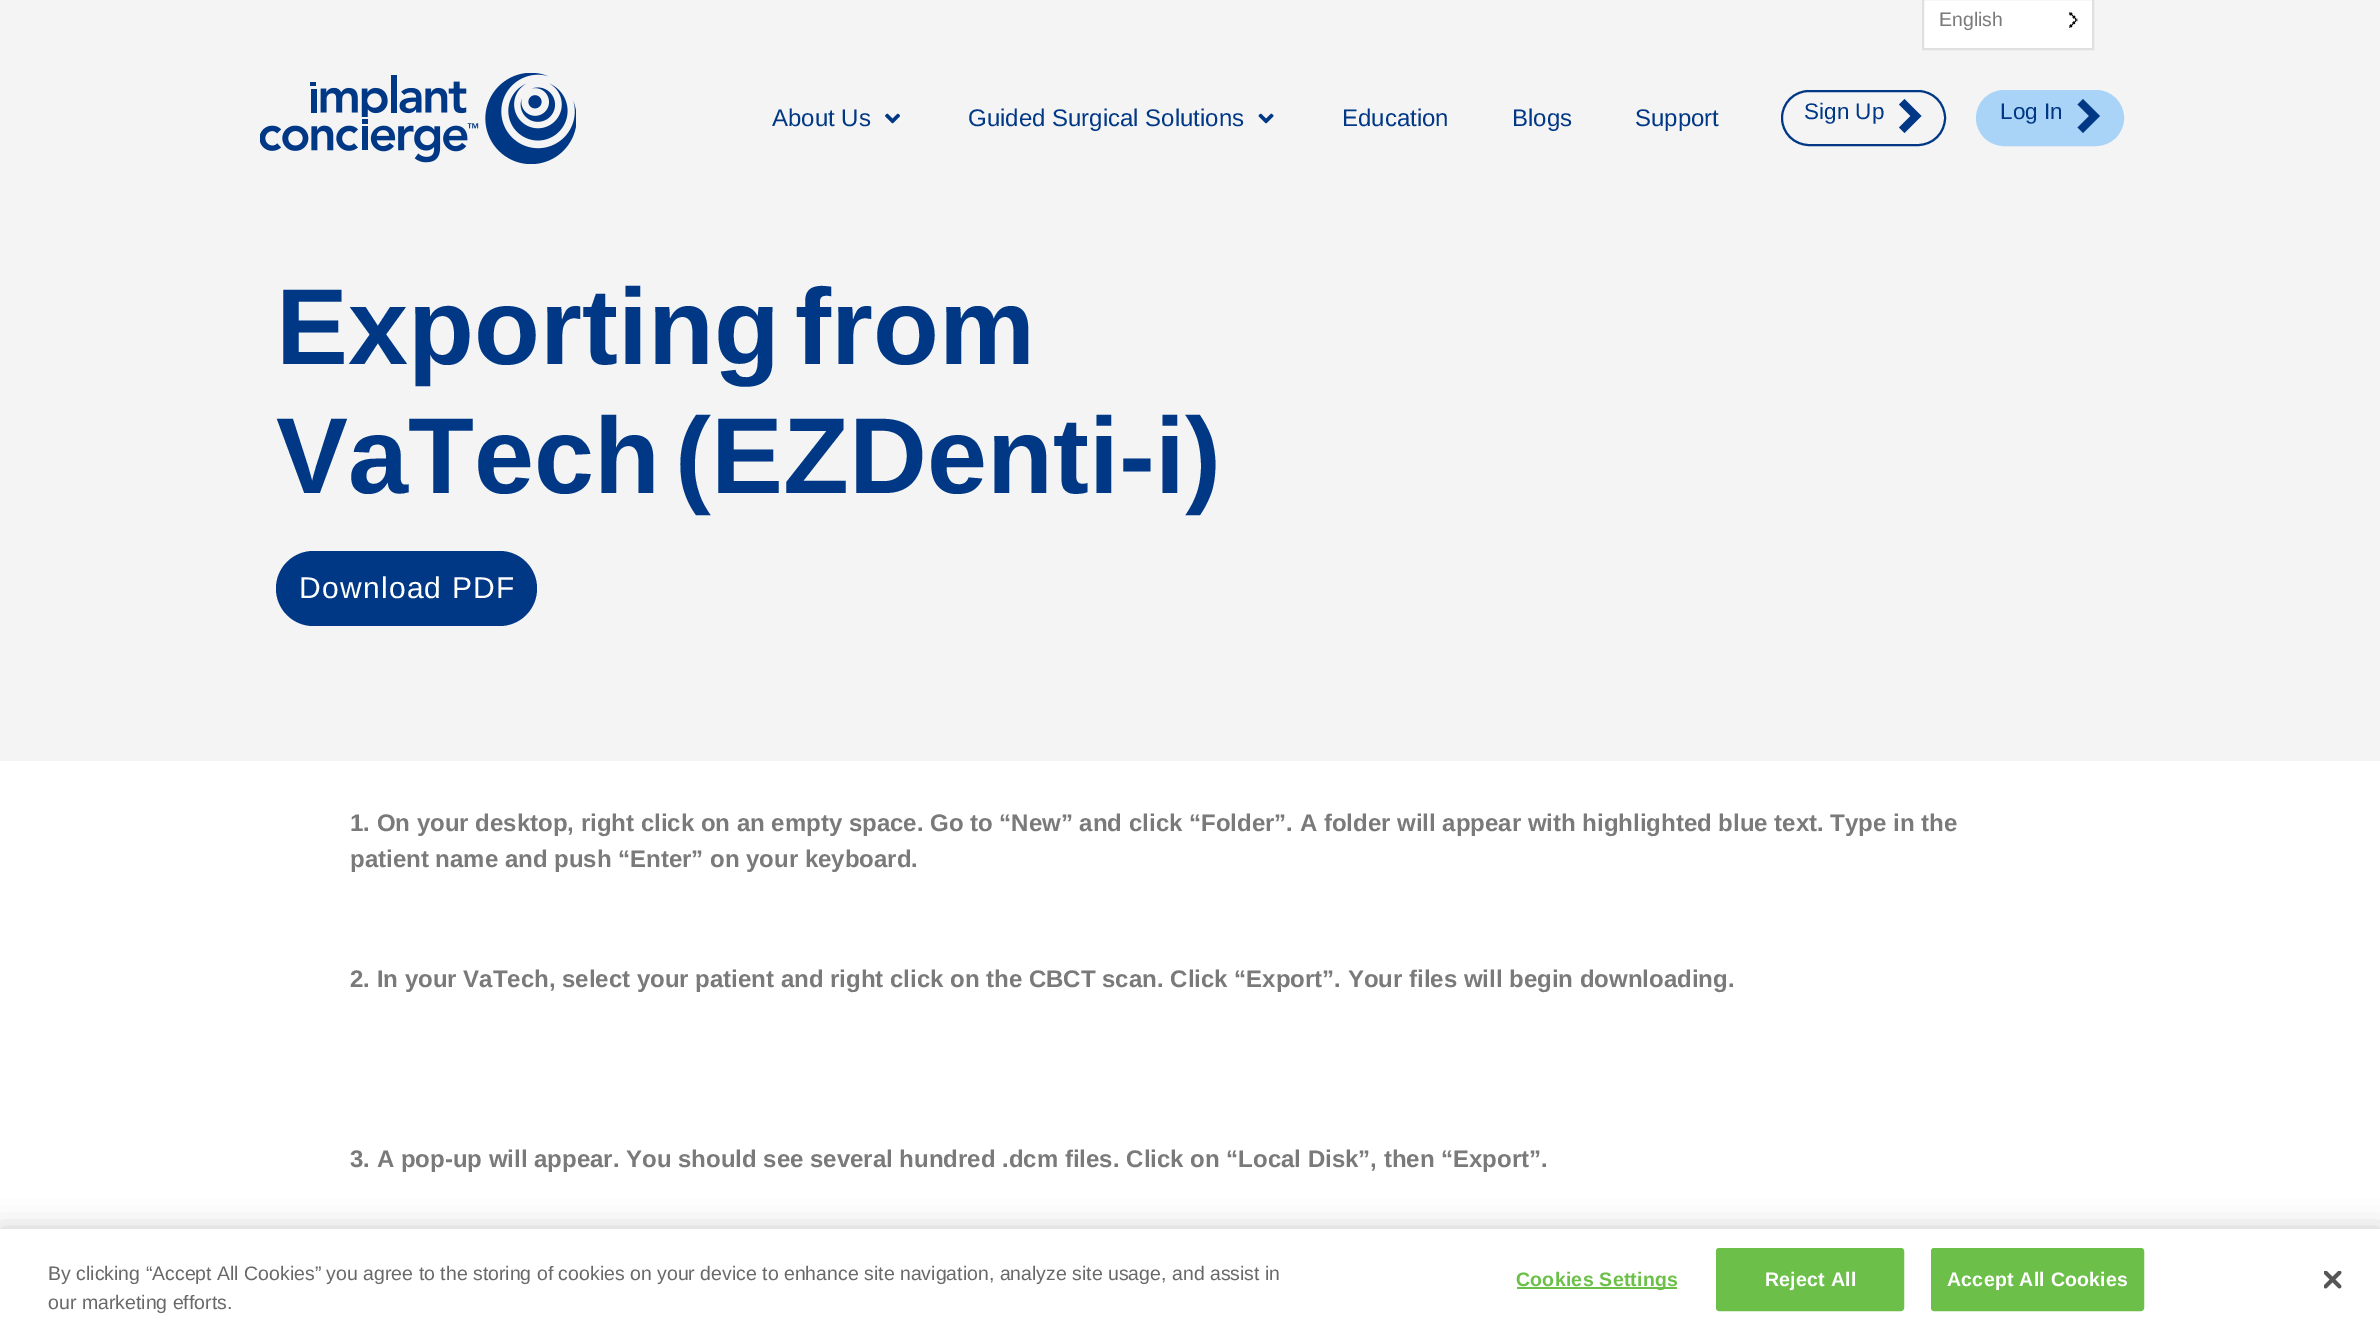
%!PS
<< /PageSize [2380 1335] /PageUsesTransparency true >> setpagedevice
/alpha { dup .setfillconstantalpha .setstrokeconstantalpha } def
/roundrect { 5 dict begin { /r /h /w /y /x } { exch def } forall
  x r add y moveto x w add y 2 copy h add r arct x w add y h add x 1 index r arct
  x y h add x y r arct x y 2 copy exch w add exch r arct closepath end } def
/shadow { 12 dict begin { /a /b /q /h /w /y /x } { exch def } forall gsave /was 0 def
  9 -2 -9 { dup b mul 4 div /e exch def 1 sub .425 mul 2.718 exch exp 1 add a .99 .min exch div /now exch def
    1 1 now sub 1 was sub div sub alpha /was now def
    w h .min e 2 mul add 0 gt { x e sub y e sub w e 2 mul add h e 2 mul add
      q e add b .6 mul add w h .min 2 div e add .min 0 .max roundrect fill } if } for grestore end } def
/picture { 5 dict begin { /h /w /y /x /name } { exch def } forall
  gsave x y translate w h scale
  w h 8 [w 0 0 h 0 0] name (r) file false 3 colorimage grestore end } def
0 .pushpdf14devicefilter
0 1335 translate 1 -1 scale
4 setmiterlimit
1 setgray
0 0 2380 1335 rectfill
0.957 setgray
0 0 2380 761 rectfill
1 setgray
newpath 1923 -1 moveto 2093 -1 lineto 2093 49 lineto 1923 49 lineto closepath gsave fill grestore
0.878 setgray
2 setlinewidth
stroke
/LiberationSans-Regular [19.5 0 0 -19.5 0 0] selectfont
0.478 setgray
1939 26 moveto (English) show
(img1.rgb) 2069 12 9 16 picture
(img2.rgb) 260 73 316 91 picture
/LiberationSans-Regular [24 0 0 -24 0 0] selectfont
0 0.22 0.525 setrgbcolor
772 126 moveto (About Us) show
(img3.rgb) 885 113 15 11 picture
968 126 moveto (Guided Surgical Solutions) show
(img4.rgb) 1258 113 16 11 picture
1342 126 moveto (Education) show
1512 126 moveto (Blogs) show
1635 126 moveto (Support) show
1782 91 163 54 27 roundrect stroke
/LiberationSans-Regular [22.5 0 0 -22.5 0 0] selectfont
1804 119 moveto (Sign Up) show
7.7 setlinewidth
2 setlinecap
newpath 1904.5 104.5 moveto 1916 116 lineto 1904.5 127.5 lineto stroke
0.667 0.831 0.969 setrgbcolor
1977 91 146 54 27 roundrect gsave fill grestore
2 setlinewidth
0 setlinecap
stroke
0 0.22 0.525 setrgbcolor
2000 119 moveto (Log In) show
7.7 setlinewidth
2 setlinecap
newpath 2083 104.5 moveto 2094.5 116 lineto 2083 127.5 lineto stroke
/LiberationSans-Bold [108 0 0 -108 0 0] selectfont
276 364 moveto -15 0 32 (Exporting from) widthshow
276 493 moveto -15 0 32 (VaTech \(EZDenti-i\)) widthshow
276 551 261 75 37.5 roundrect fill
/LiberationSans-Regular [30 0 0 -30 0 0] selectfont
1 setgray
299 598 moveto 1.25 0 (Download PDF) ashow
/LiberationSans-Bold [24 0 0 -24 0 0] selectfont
0.478 setgray
350 831 moveto (1. On your desktop, right click on an empty space. Go to “New” and click “Folder”. A folder will appear with highlighted blue text. Type in the) show
350 867 moveto (patient name and push “Enter” on your keyboard.) show
350 987 moveto (2. In your VaTech, select your patient and right click on the CBCT scan. Click “Export”. Your files will begin downloading.) show
350 1167 moveto (3. A pop-up will appear. You should see several hundred .dcm files. Click on “Local Disk”, then “Export”.) show
0 setgray
0 1229 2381 106 0 13.5 0.2 shadow
1 setgray
0 1229 2380 106 rectfill
/LiberationSans-Regular [19.5 0 0 -19.5 0 0] selectfont
0.412 setgray
48 1280 moveto (By clicking “Accept All Cookies” you agree to the storing of cookies on your device to enhance site navigation, analyze site usage, and assist in) show
48 1309 moveto (our marketing efforts.) show
0.424 0.753 0.29 setrgbcolor
1517 1287 160 2 rectfill
/LiberationSans-Bold [19.5 0 0 -19.5 0 0] selectfont
1516 1286 moveto 0.25 0 (Cookies Settings) ashow
1717 1249 186 61 2 roundrect gsave fill grestore
2 setlinewidth
0 setlinecap
stroke
1 setgray
1765 1286 moveto 0.25 0 (Reject All) ashow
0.424 0.753 0.29 setrgbcolor
1932 1249 211 61 2 roundrect gsave fill grestore
stroke
1 setgray
1947 1286 moveto 0.25 0 (Accept All Cookies) ashow
(img5.rgb) 2324 1271 18 18 picture
.poppdf14devicefilter showpage
